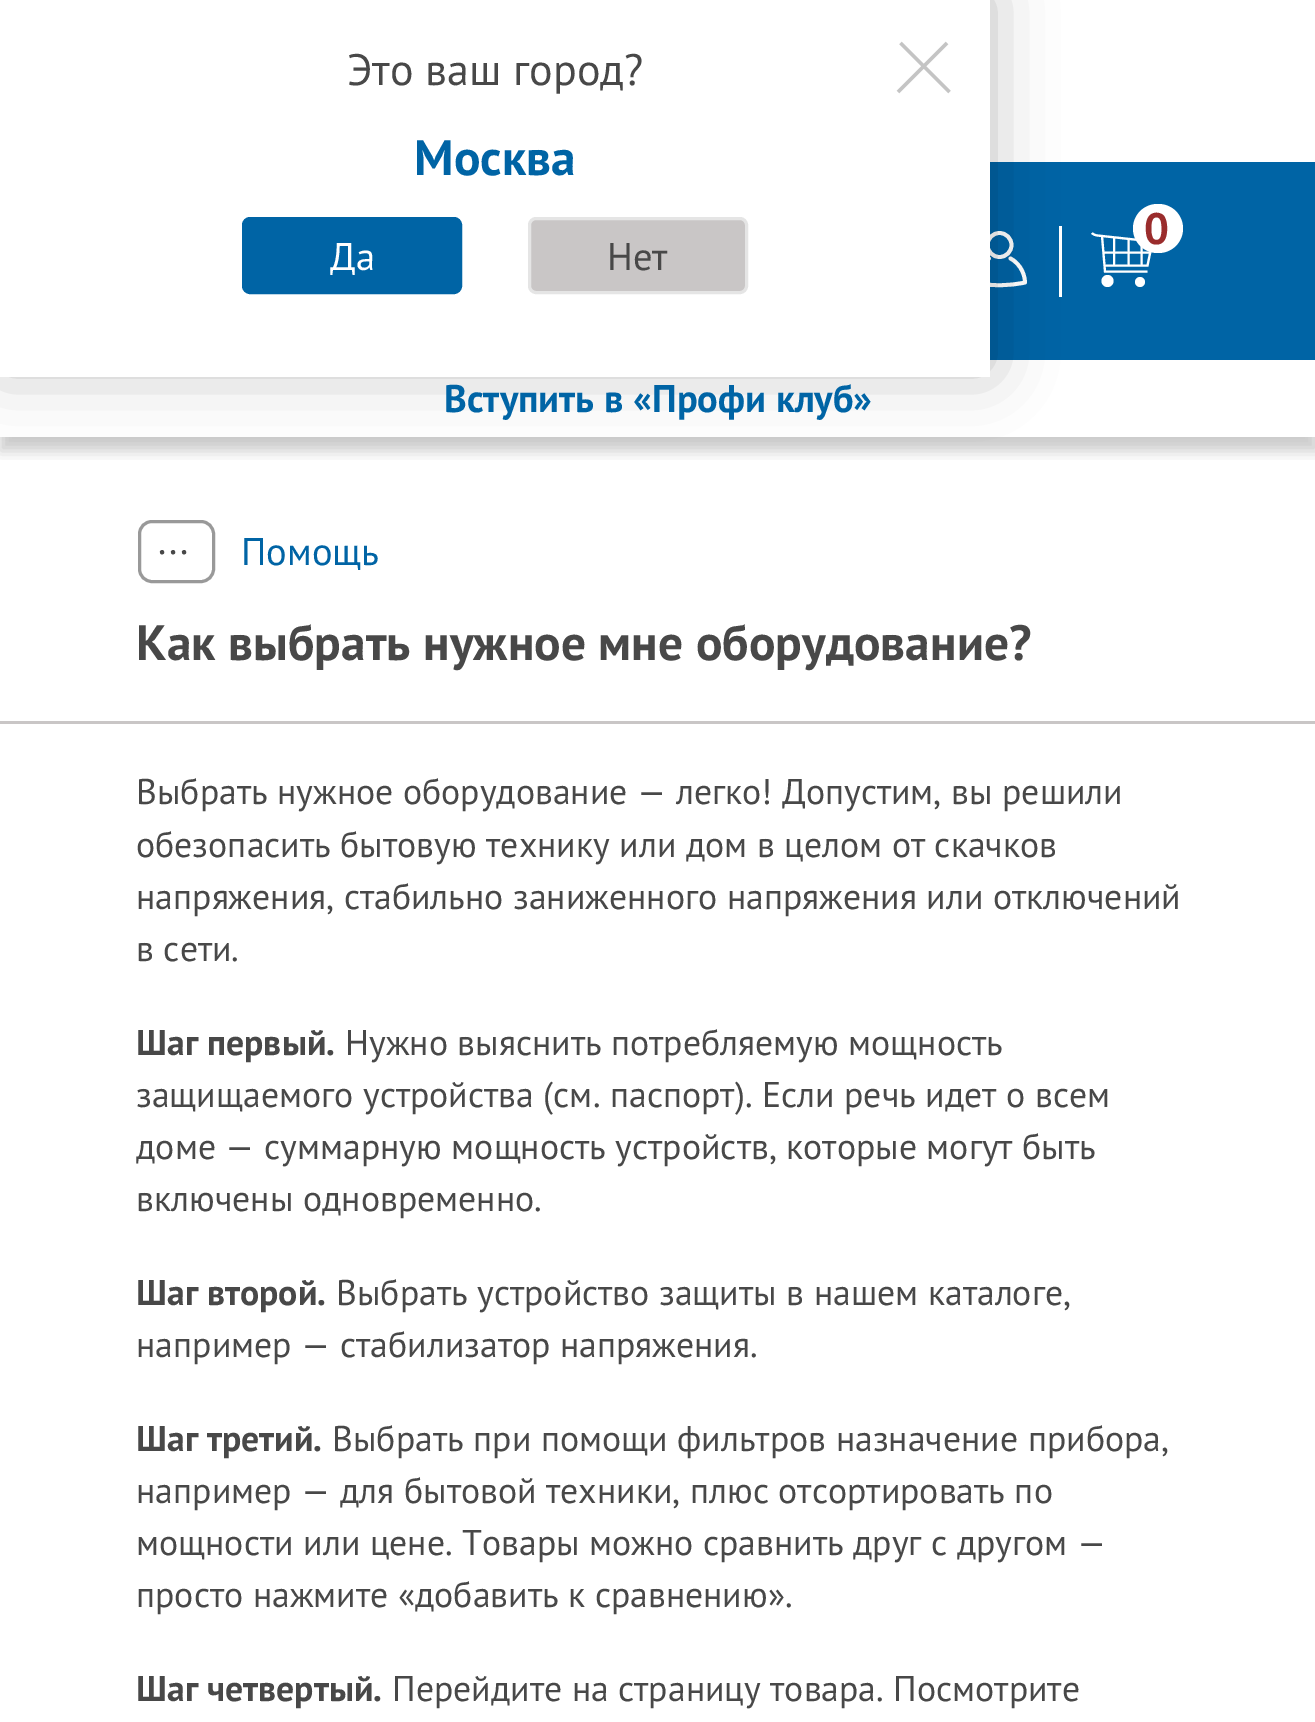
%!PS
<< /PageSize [1315 1722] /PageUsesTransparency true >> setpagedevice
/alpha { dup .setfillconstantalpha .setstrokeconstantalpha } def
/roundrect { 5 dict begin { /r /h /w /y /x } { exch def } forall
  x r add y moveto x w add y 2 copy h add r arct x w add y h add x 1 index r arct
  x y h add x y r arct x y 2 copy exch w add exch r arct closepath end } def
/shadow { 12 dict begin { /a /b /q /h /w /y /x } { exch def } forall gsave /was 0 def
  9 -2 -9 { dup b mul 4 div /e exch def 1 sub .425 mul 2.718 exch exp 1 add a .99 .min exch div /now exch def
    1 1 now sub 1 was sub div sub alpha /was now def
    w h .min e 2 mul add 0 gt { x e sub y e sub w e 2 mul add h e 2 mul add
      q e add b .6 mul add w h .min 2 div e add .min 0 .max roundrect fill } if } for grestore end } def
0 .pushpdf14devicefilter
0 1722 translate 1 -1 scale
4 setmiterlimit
1 setgray
0 0 1315 1722 rectfill
gsave
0 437 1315 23 rectclip
0 setgray
0 14 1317 437 0 7 0.2 shadow
grestore
0 0.392 0.647 setrgbcolor
990 162 325 198 rectfill
1 setgray
3.8 setlinewidth
1 setlinecap
1 setlinejoin
newpath 989 258.5 moveto 983.5 261 974 269.5 974 282.5 curveto 990.5 286.5 1008.5 286 1025 282.5 curveto 1025 277.5 1022.5 265 1010.5 258.5 curveto stroke
0 setlinecap
0 setlinejoin
newpath 999.5 245 12 0 360 arc closepath stroke
1059 226 3 71 rectfill
0 setgray
0 -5 990 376 0 31.5 0.25 shadow
1 setgray
0 0 990 377 rectfill
/PTSans-Regular [44 0 0 -44 0 0] selectfont
0.282 setgray
347 85 moveto (Это ваш город?) show
/PTSans-Bold [49.5 0 0 -49.5 0 0] selectfont
0 0.392 0.647 setrgbcolor
414 175 moveto (Москва) show
243.5 218.5 217 74 6.5 roundrect gsave fill grestore
3 setlinewidth
stroke
/PTSans-Regular [38.5 0 0 -38.5 0 0] selectfont
1 setgray
330 270 moveto (Да) show
0.788 0.776 0.776 setrgbcolor
529.5 218.5 217 74 6.5 roundrect gsave fill grestore
0.898 setgray
stroke
0.282 setgray
607 270 moveto (Нет) show
0.769 setgray
3.4 setlinewidth
newpath 900.5 43 moveto 949.5 92 lineto 947 43 moveto 898 92 lineto stroke
1 setgray
2.1 setlinewidth
newpath 1114 237 moveto 1114 265.5 lineto 1128.5 238.5 moveto 1128.5 265.5 lineto 1141.5 240.5 moveto 1141.5 265.5 lineto 1150.5 252.5 moveto 1103.5 252.5 lineto 1092 233 moveto 1094.5 236 1099 235.5 1102 236 curveto 1105 265.5 moveto 1147.5 265.5 lineto 1152.5 241.5 lineto 1102 236 lineto 1102 236 moveto 1105 271.5 lineto 1147.5 271.5 lineto stroke
1133 204 50 49 24.5 roundrect fill
/PTSans-Bold [44 0 0 -44 0 0] selectfont
0.604 0.173 0.173 setrgbcolor
1144 244 moveto (0) show
1 setgray
newpath 1107.5 281 6 0 360 arc closepath fill
newpath 1140 282 5 0 360 arc closepath fill
/PTSans-Bold [38.5 0 0 -38.5 0 0] selectfont
0 0.392 0.647 setrgbcolor
444 412 moveto (Вступить в «Профи клуб») show
0.6 setgray
3 setlinewidth
139.5 521.5 74 60 12.5 roundrect stroke
/PTSans-Regular [38.5 0 0 -38.5 0 0] selectfont
0.282 setgray
158 554 moveto 3 0 (...) ashow
0 0.392 0.647 setrgbcolor
241 565 moveto (Помощь) show
/PTSans-Bold [49.5 0 0 -49.5 0 0] selectfont
0.282 setgray
136 660 moveto (Как выбрать нужное мне оборудование?) show
0.788 0.776 0.776 setrgbcolor
0 721 1315 3 rectfill
/PTSans-Regular [35.75 0 0 -35.75 0 0] selectfont
0.282 setgray
136 804 moveto (Выбрать нужное оборудование — легко! Допустим, вы решили) show
136 857 moveto (обезопасить бытовую технику или дом в целом от скачков) show
136 909 moveto (напряжения, стабильно заниженного напряжения или отключений) show
136 961 moveto (в сети.) show
/PTSans-Bold [35.75 0 0 -35.75 0 0] selectfont
136 1055 moveto (Шаг первый.) show
/PTSans-Regular [35.75 0 0 -35.75 0 0] selectfont
345 1055 moveto (Нужно выяснить потребляемую мощность) show
136 1107 moveto (защищаемого устройства \(см. паспорт\). Если речь идет о всем) show
136 1159 moveto (доме — суммарную мощность устройств, которые могут быть) show
136 1211 moveto (включены одновременно.) show
/PTSans-Bold [35.75 0 0 -35.75 0 0] selectfont
136 1305 moveto (Шаг второй.) show
/PTSans-Regular [35.75 0 0 -35.75 0 0] selectfont
336 1305 moveto (Выбрать устройство защиты в нашем каталоге,) show
136 1357 moveto (например — стабилизатор напряжения.) show
/PTSans-Bold [35.75 0 0 -35.75 0 0] selectfont
136 1451 moveto (Шаг третий.) show
/PTSans-Regular [35.75 0 0 -35.75 0 0] selectfont
332 1451 moveto (Выбрать при помощи фильтров назначение прибора,) show
136 1503 moveto (например — для бытовой техники, плюс отсортировать по) show
136 1555 moveto (мощности или цене. Товары можно сравнить друг с другом —) show
136 1607 moveto (просто нажмите «добавить к сравнению».) show
/PTSans-Bold [35.75 0 0 -35.75 0 0] selectfont
136 1701 moveto (Шаг четвертый.) show
/PTSans-Regular [35.75 0 0 -35.75 0 0] selectfont
392 1701 moveto (Перейдите на страницу товара. Посмотрите) show
.poppdf14devicefilter showpage
